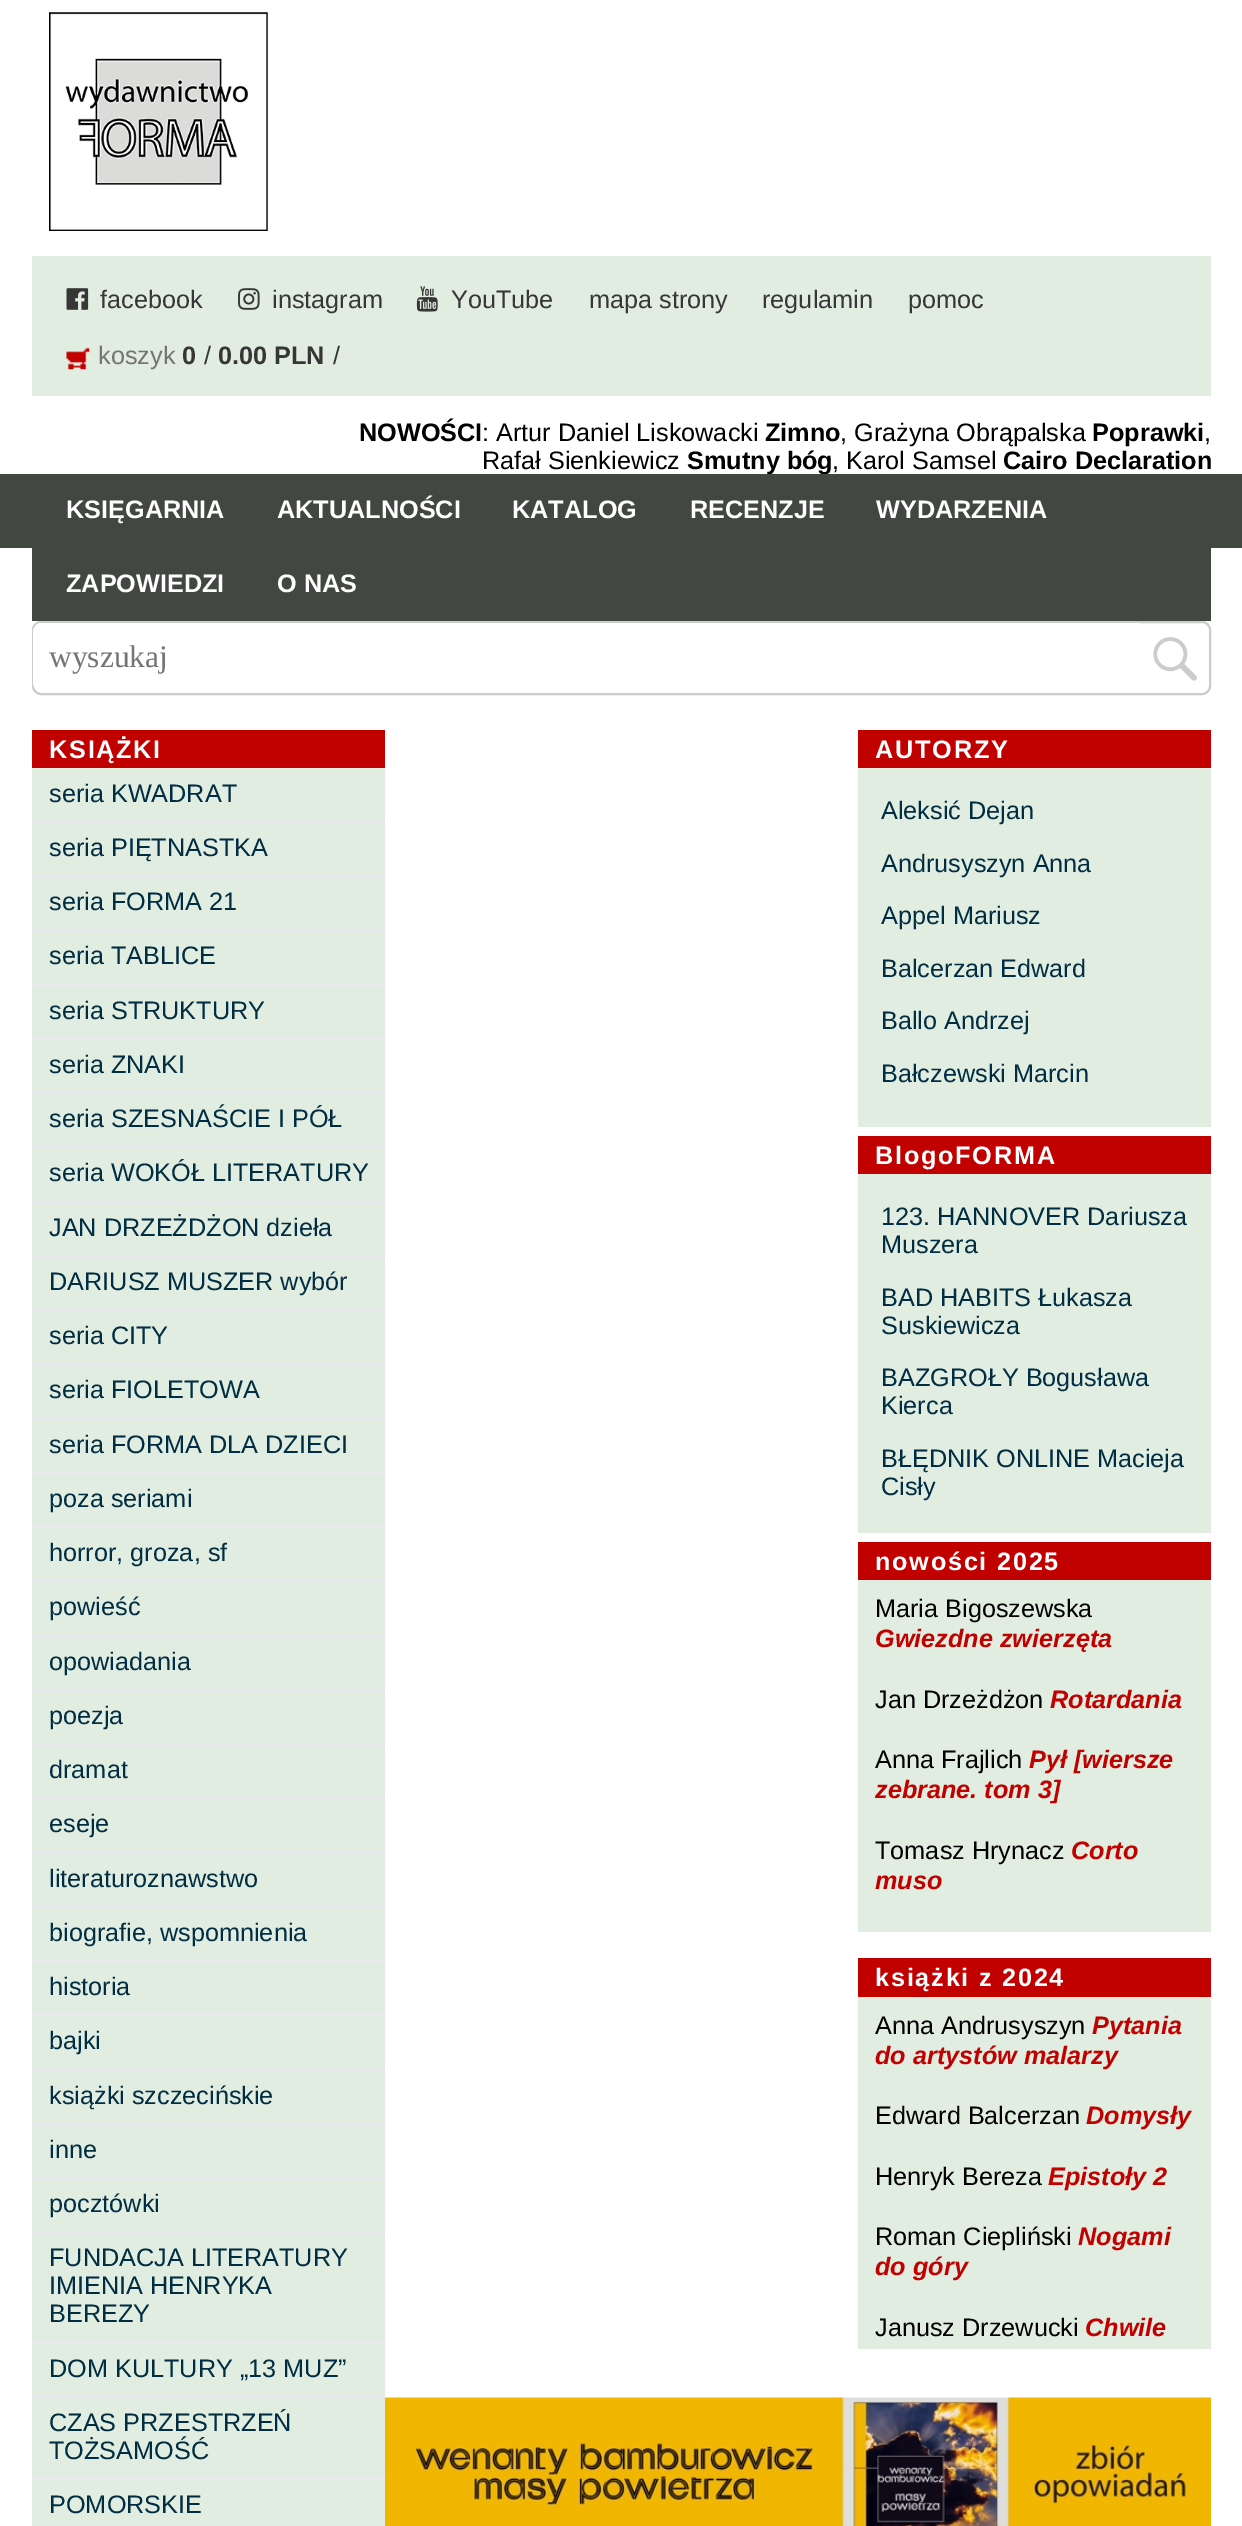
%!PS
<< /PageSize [1242 2526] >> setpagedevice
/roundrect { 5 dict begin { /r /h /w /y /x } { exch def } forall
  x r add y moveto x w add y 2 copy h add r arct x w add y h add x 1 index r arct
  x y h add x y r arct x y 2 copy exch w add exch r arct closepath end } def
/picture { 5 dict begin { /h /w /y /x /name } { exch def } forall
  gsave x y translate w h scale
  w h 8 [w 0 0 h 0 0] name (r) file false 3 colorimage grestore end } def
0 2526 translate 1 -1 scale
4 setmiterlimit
1 setgray
0 0 1242 2526 rectfill
(img1.rgb) 49 12 219 219 picture
0.882 0.929 0.882 setrgbcolor
32 256 1179 140 rectfill
(img2.rgb) 66 288 23 22 picture
/LiberationSans-Regular [25.25 0 0 -25.25 0 0] selectfont
0.212 setgray
100 308 moveto (facebook) show
(img3.rgb) 238 288 22 22 picture
272 308 moveto (instagram) show
(img4.rgb) 416 286 22 26 picture
451 308 moveto (YouTube) show
589 308 moveto (mapa strony) show
762 308 moveto (regulamin) show
908 308 moveto (pomoc) show
(img5.rgb) 66 347 24 23 picture
0.459 setgray
98 364 moveto (koszyk) show
/LiberationSans-Bold [25.25 0 0 -25.25 0 0] selectfont
0.212 setgray
182 364 moveto (0) show
/LiberationSans-Regular [25.25 0 0 -25.25 0 0] selectfont
204 364 moveto (/) show
/LiberationSans-Bold [25.25 0 0 -25.25 0 0] selectfont
218 364 moveto (0.00 PLN) show
/LiberationSans-Regular [25.25 0 0 -25.25 0 0] selectfont
333 364 moveto (/) show
/LiberationSans-Bold [25.25 0 0 -25.25 0 0] selectfont
0 setgray
359 441 moveto (NOWOŚCI) show
/LiberationSans-Regular [25.25 0 0 -25.25 0 0] selectfont
482 441 moveto (: Artur Daniel Liskowacki) show
/LiberationSans-Bold [25.25 0 0 -25.25 0 0] selectfont
765 441 moveto (Zimno) show
/LiberationSans-Regular [25.25 0 0 -25.25 0 0] selectfont
840 441 moveto (, Grażyna Obrąpalska) show
/LiberationSans-Bold [25.25 0 0 -25.25 0 0] selectfont
1092 441 moveto (Poprawki) show
/LiberationSans-Regular [25.25 0 0 -25.25 0 0] selectfont
1204 441 moveto (,) show
482 469 moveto (Rafał Sienkiewicz) show
/LiberationSans-Bold [25.25 0 0 -25.25 0 0] selectfont
687 469 moveto (Smutny bóg) show
/LiberationSans-Regular [25.25 0 0 -25.25 0 0] selectfont
832 469 moveto (, Karol Samsel) show
/LiberationSans-Bold [25.25 0 0 -25.25 0 0] selectfont
1003 469 moveto (Cairo Declaration) show
0.259 0.278 0.255 setrgbcolor
0 474 1242 74 rectfill
32 474 1179 147 rectfill
1 setgray
66 518 moveto (KSIĘGARNIA) show
277 518 moveto (AKTUALNOŚCI) show
512 518 moveto (KATALOG) show
690 518 moveto (RECENZJE) show
876 518 moveto (WYDARZENIA) show
66 592 moveto (ZAPOWIEDZI) show
277 592 moveto (O NAS) show
0.8 setgray
2 setlinewidth
33 622 1177 72 8 roundrect stroke
1 setgray
newpath 42 623 moveto 1139 623 lineto 1139 691 lineto 42 691 lineto 37 691 33 687 33 682 curveto 33 632 lineto 33 627 37 623 42 623 curveto closepath fill
/LiberationSerif-Regular [31.5 0 0 -31.5 0 0] selectfont
0.459 setgray
49 667 moveto (wyszukaj) show
(img6.rgb) 1153 637 44 44 picture
0.882 0.929 0.882 setrgbcolor
32 768 353 1758 rectfill
0.757 0 0 setrgbcolor
32 730 353 38 rectfill
/LiberationSans-Bold [25.25 0 0 -25.25 0 0] selectfont
1 setgray
49 758 moveto 1.75 0 (KSIĄŻKI) ashow
0.91 0.918 0.929 setrgbcolor
32 821 353 2 rectfill
/LiberationSans-Regular [25.25 0 0 -25.25 0 0] selectfont
0 0.176 0.255 setrgbcolor
49 802 moveto (seria KWADRAT) show
0.91 0.918 0.929 setrgbcolor
32 875 353 2 rectfill
0 0.176 0.255 setrgbcolor
49 856 moveto (seria PIĘTNASTKA) show
0.91 0.918 0.929 setrgbcolor
32 929 353 2 rectfill
0 0.176 0.255 setrgbcolor
49 910 moveto (seria FORMA 21) show
0.91 0.918 0.929 setrgbcolor
32 984 353 2 rectfill
0 0.176 0.255 setrgbcolor
49 964 moveto (seria TABLICE) show
0.91 0.918 0.929 setrgbcolor
32 1038 353 2 rectfill
0 0.176 0.255 setrgbcolor
49 1019 moveto (seria STRUKTURY) show
0.91 0.918 0.929 setrgbcolor
32 1092 353 2 rectfill
0 0.176 0.255 setrgbcolor
49 1073 moveto (seria ZNAKI) show
0.91 0.918 0.929 setrgbcolor
32 1146 353 2 rectfill
0 0.176 0.255 setrgbcolor
49 1127 moveto (seria SZESNAŚCIE I PÓŁ) show
0.91 0.918 0.929 setrgbcolor
32 1201 353 2 rectfill
0 0.176 0.255 setrgbcolor
49 1181 moveto (seria WOKÓŁ LITERATURY) show
0.91 0.918 0.929 setrgbcolor
32 1255 353 2 rectfill
0 0.176 0.255 setrgbcolor
49 1236 moveto (JAN DRZEŻDŻON dzieła) show
0.91 0.918 0.929 setrgbcolor
32 1309 353 2 rectfill
0 0.176 0.255 setrgbcolor
49 1290 moveto (DARIUSZ MUSZER wybór) show
0.91 0.918 0.929 setrgbcolor
32 1363 353 2 rectfill
0 0.176 0.255 setrgbcolor
49 1344 moveto (seria CITY) show
0.91 0.918 0.929 setrgbcolor
32 1418 353 2 rectfill
0 0.176 0.255 setrgbcolor
49 1398 moveto (seria FIOLETOWA) show
0.91 0.918 0.929 setrgbcolor
32 1472 353 2 rectfill
0 0.176 0.255 setrgbcolor
49 1453 moveto (seria FORMA DLA DZIECI) show
0.91 0.918 0.929 setrgbcolor
32 1526 353 2 rectfill
0 0.176 0.255 setrgbcolor
49 1507 moveto (poza seriami) show
0.91 0.918 0.929 setrgbcolor
32 1580 353 2 rectfill
0 0.176 0.255 setrgbcolor
49 1561 moveto (horror, groza, sf) show
0.91 0.918 0.929 setrgbcolor
32 1635 353 2 rectfill
0 0.176 0.255 setrgbcolor
49 1615 moveto (powieść) show
0.91 0.918 0.929 setrgbcolor
32 1689 353 2 rectfill
0 0.176 0.255 setrgbcolor
49 1670 moveto (opowiadania) show
0.91 0.918 0.929 setrgbcolor
32 1743 353 2 rectfill
0 0.176 0.255 setrgbcolor
49 1724 moveto (poezja) show
0.91 0.918 0.929 setrgbcolor
32 1797 353 2 rectfill
0 0.176 0.255 setrgbcolor
49 1778 moveto (dramat) show
0.91 0.918 0.929 setrgbcolor
32 1852 353 2 rectfill
0 0.176 0.255 setrgbcolor
49 1832 moveto (eseje) show
0.91 0.918 0.929 setrgbcolor
32 1906 353 2 rectfill
0 0.176 0.255 setrgbcolor
49 1887 moveto (literaturoznawstwo) show
0.91 0.918 0.929 setrgbcolor
32 1960 353 2 rectfill
0 0.176 0.255 setrgbcolor
49 1941 moveto (biografie, wspomnienia) show
0.91 0.918 0.929 setrgbcolor
32 2014 353 2 rectfill
0 0.176 0.255 setrgbcolor
49 1995 moveto (historia) show
0.91 0.918 0.929 setrgbcolor
32 2069 353 2 rectfill
0 0.176 0.255 setrgbcolor
49 2049 moveto (bajki) show
0.91 0.918 0.929 setrgbcolor
32 2123 353 2 rectfill
0 0.176 0.255 setrgbcolor
49 2104 moveto (książki szczecińskie) show
0.91 0.918 0.929 setrgbcolor
32 2177 353 2 rectfill
0 0.176 0.255 setrgbcolor
49 2158 moveto (inne) show
0.91 0.918 0.929 setrgbcolor
32 2231 353 2 rectfill
0 0.176 0.255 setrgbcolor
49 2212 moveto (pocztówki) show
0.91 0.918 0.929 setrgbcolor
32 2342 353 2 rectfill
0 0.176 0.255 setrgbcolor
49 2266 moveto (FUNDACJA LITERATURY) show
49 2294 moveto (IMIENIA HENRYKA) show
49 2322 moveto (BEREZY) show
0.91 0.918 0.929 setrgbcolor
32 2396 353 2 rectfill
0 0.176 0.255 setrgbcolor
49 2377 moveto (DOM KULTURY „13 MUZ”) show
0.91 0.918 0.929 setrgbcolor
32 2478 353 2 rectfill
0 0.176 0.255 setrgbcolor
49 2431 moveto (CZAS PRZESTRZEŃ) show
49 2459 moveto (TOŻSAMOŚĆ) show
49 2513 moveto (POMORSKIE) show
0.882 0.929 0.882 setrgbcolor
858 768 353 359 rectfill
0.757 0 0 setrgbcolor
858 730 353 38 rectfill
/LiberationSans-Bold [25.25 0 0 -25.25 0 0] selectfont
1 setgray
875 758 moveto 1.75 0 (AUTORZY) ashow
/LiberationSans-Regular [25.25 0 0 -25.25 0 0] selectfont
0 0.176 0.255 setrgbcolor
881 819 moveto (Aleksić Dejan) show
881 872 moveto (Andrusyszyn Anna) show
881 924 moveto (Appel Mariusz) show
881 977 moveto (Balcerzan Edward) show
881 1029 moveto (Ballo Andrzej) show
881 1082 moveto (Bałczewski Marcin) show
0.882 0.929 0.882 setrgbcolor
858 1174 353 359 rectfill
0.757 0 0 setrgbcolor
858 1136 353 38 rectfill
/LiberationSans-Bold [25.25 0 0 -25.25 0 0] selectfont
1 setgray
875 1164 moveto 1.75 0 (BlogoFORMA) ashow
/LiberationSans-Regular [25.25 0 0 -25.25 0 0] selectfont
0 0.176 0.255 setrgbcolor
881 1225 moveto (123. HANNOVER Dariusza) show
881 1253 moveto (Muszera) show
881 1306 moveto (BAD HABITS Łukasza) show
881 1334 moveto (Suskiewicza) show
881 1386 moveto (BAZGROŁY Bogusława) show
881 1414 moveto (Kierca) show
881 1467 moveto (BŁĘDNIK ONLINE Macieja) show
881 1495 moveto (Cisły) show
0.882 0.929 0.882 setrgbcolor
858 1580 353 352 rectfill
0.757 0 0 setrgbcolor
858 1542 353 38 rectfill
/LiberationSans-Bold [25.25 0 0 -25.25 0 0] selectfont
1 setgray
875 1570 moveto 1.75 0 (nowości 2025) ashow
/LiberationSans-Regular [25.25 0 0 -25.25 0 0] selectfont
0 setgray
875 1617 moveto (Maria Bigoszewska) show
/LiberationSans-BoldItalic [25.25 0 0 -25.25 0 0] selectfont
0.757 0 0 setrgbcolor
875 1647 moveto (Gwiezdne zwierzęta) show
/LiberationSans-Regular [25.25 0 0 -25.25 0 0] selectfont
0 setgray
875 1708 moveto (Jan Drzeżdżon) show
/LiberationSans-BoldItalic [25.25 0 0 -25.25 0 0] selectfont
0.757 0 0 setrgbcolor
1050 1708 moveto (Rotardania) show
/LiberationSans-Regular [25.25 0 0 -25.25 0 0] selectfont
0 setgray
875 1768 moveto (Anna Frajlich) show
/LiberationSans-BoldItalic [25.25 0 0 -25.25 0 0] selectfont
0.757 0 0 setrgbcolor
1029 1768 moveto (Pył [wiersze) show
875 1798 moveto (zebrane. tom 3]) show
/LiberationSans-Regular [25.25 0 0 -25.25 0 0] selectfont
0 setgray
875 1859 moveto (Tomasz Hrynacz) show
/LiberationSans-BoldItalic [25.25 0 0 -25.25 0 0] selectfont
0.757 0 0 setrgbcolor
1071 1859 moveto (Corto) show
875 1889 moveto (muso) show
0.882 0.929 0.882 setrgbcolor
858 1997 353 352 rectfill
0.757 0 0 setrgbcolor
858 1958 353 39 rectfill
/LiberationSans-Bold [25.25 0 0 -25.25 0 0] selectfont
1 setgray
875 1986 moveto 1.75 0 (książki z 2024) ashow
/LiberationSans-Regular [25.25 0 0 -25.25 0 0] selectfont
0 setgray
875 2034 moveto (Anna Andrusyszyn) show
/LiberationSans-BoldItalic [25.25 0 0 -25.25 0 0] selectfont
0.757 0 0 setrgbcolor
1092 2034 moveto (Pytania) show
875 2064 moveto (do artystów malarzy) show
/LiberationSans-Regular [25.25 0 0 -25.25 0 0] selectfont
0 setgray
875 2124 moveto (Edward Balcerzan) show
/LiberationSans-BoldItalic [25.25 0 0 -25.25 0 0] selectfont
0.757 0 0 setrgbcolor
1086 2124 moveto (Domysły) show
/LiberationSans-Regular [25.25 0 0 -25.25 0 0] selectfont
0 setgray
875 2185 moveto (Henryk Bereza) show
/LiberationSans-BoldItalic [25.25 0 0 -25.25 0 0] selectfont
0.757 0 0 setrgbcolor
1048 2185 moveto (Epistoły 2) show
/LiberationSans-Regular [25.25 0 0 -25.25 0 0] selectfont
0 setgray
875 2245 moveto (Roman Ciepliński) show
/LiberationSans-BoldItalic [25.25 0 0 -25.25 0 0] selectfont
0.757 0 0 setrgbcolor
1078 2245 moveto (Nogami) show
875 2275 moveto (do góry) show
/LiberationSans-Regular [25.25 0 0 -25.25 0 0] selectfont
0 setgray
875 2336 moveto (Janusz Drzewucki) show
/LiberationSans-BoldItalic [25.25 0 0 -25.25 0 0] selectfont
0.757 0 0 setrgbcolor
1085 2336 moveto (Chwile) show
(img7.rgb) 385 2397 826 129 picture
showpage
